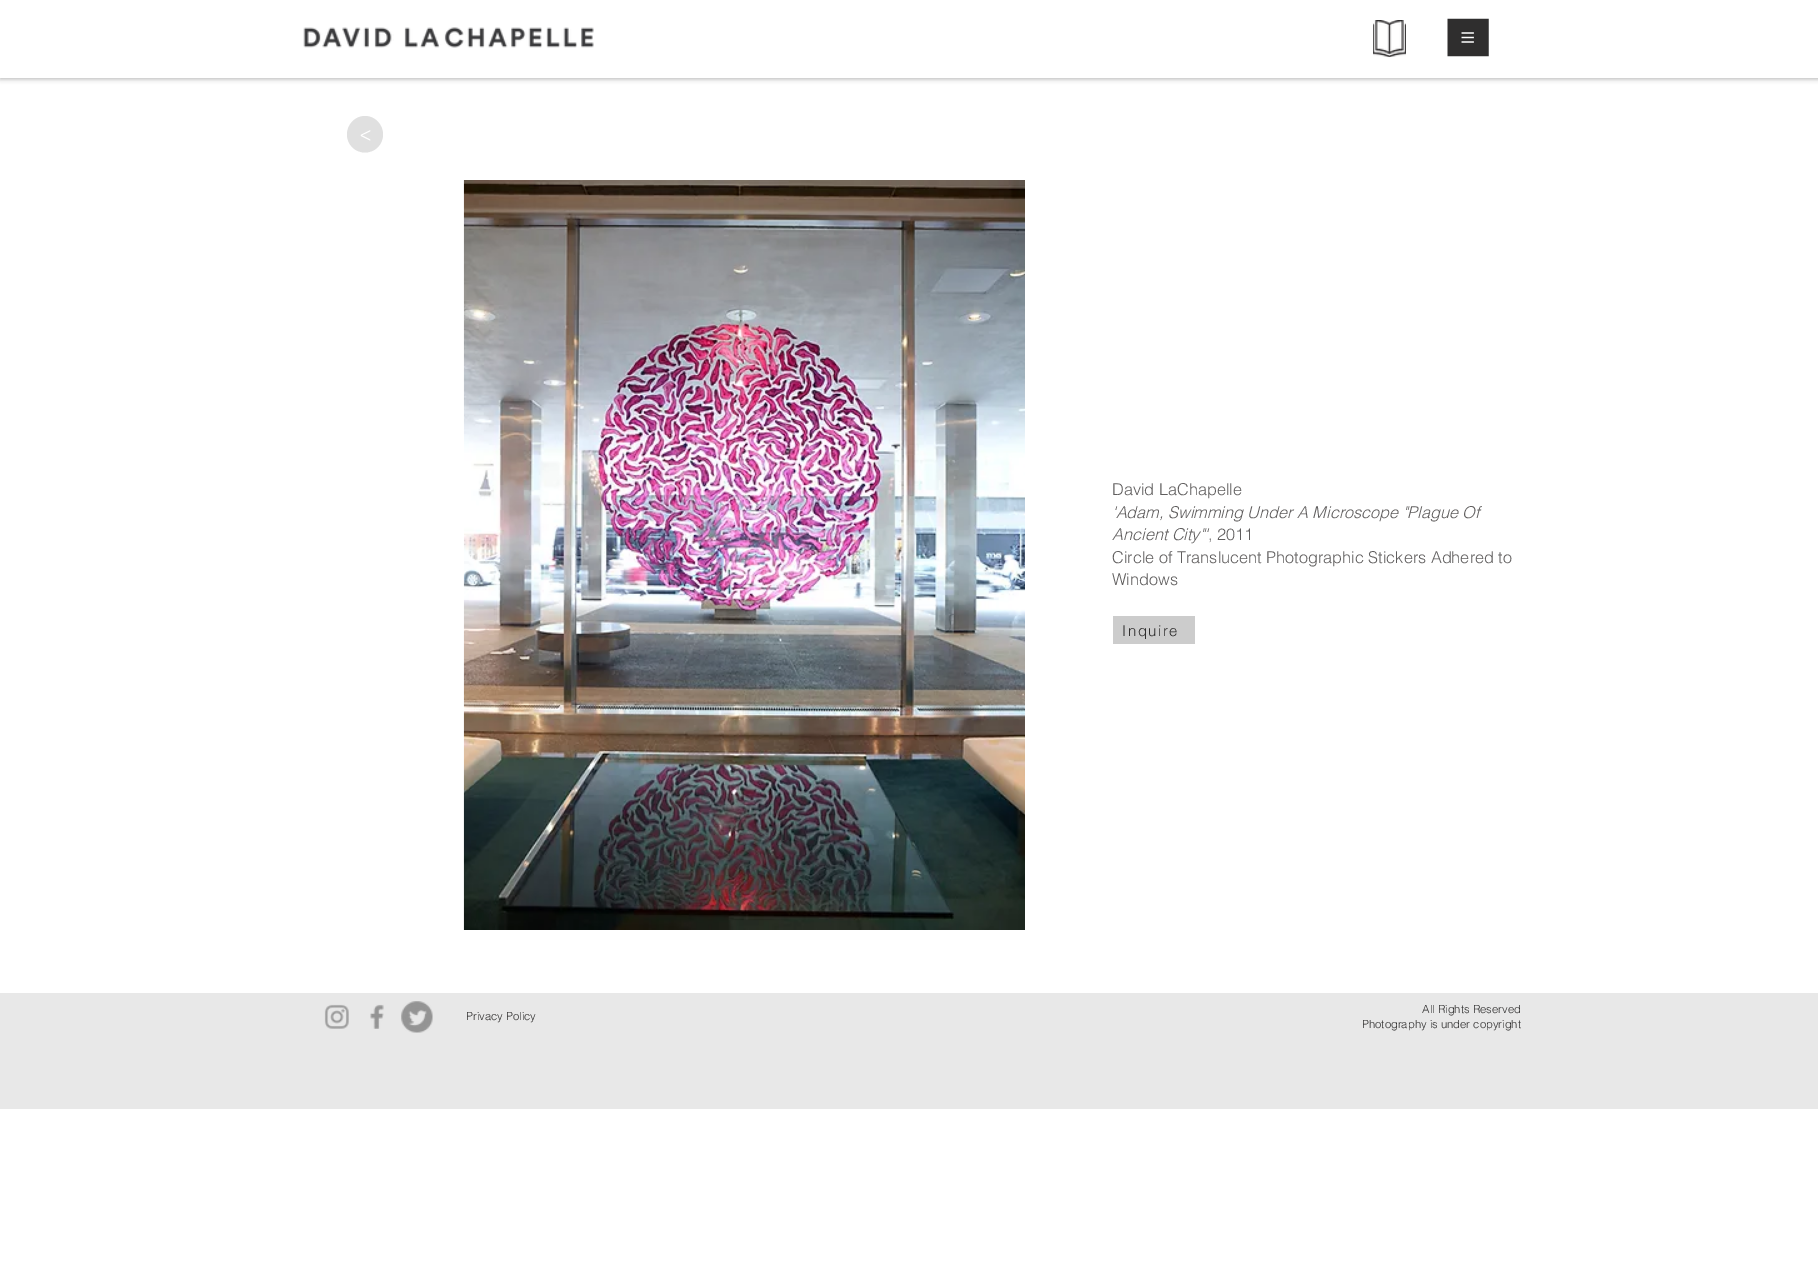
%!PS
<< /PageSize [1818 1261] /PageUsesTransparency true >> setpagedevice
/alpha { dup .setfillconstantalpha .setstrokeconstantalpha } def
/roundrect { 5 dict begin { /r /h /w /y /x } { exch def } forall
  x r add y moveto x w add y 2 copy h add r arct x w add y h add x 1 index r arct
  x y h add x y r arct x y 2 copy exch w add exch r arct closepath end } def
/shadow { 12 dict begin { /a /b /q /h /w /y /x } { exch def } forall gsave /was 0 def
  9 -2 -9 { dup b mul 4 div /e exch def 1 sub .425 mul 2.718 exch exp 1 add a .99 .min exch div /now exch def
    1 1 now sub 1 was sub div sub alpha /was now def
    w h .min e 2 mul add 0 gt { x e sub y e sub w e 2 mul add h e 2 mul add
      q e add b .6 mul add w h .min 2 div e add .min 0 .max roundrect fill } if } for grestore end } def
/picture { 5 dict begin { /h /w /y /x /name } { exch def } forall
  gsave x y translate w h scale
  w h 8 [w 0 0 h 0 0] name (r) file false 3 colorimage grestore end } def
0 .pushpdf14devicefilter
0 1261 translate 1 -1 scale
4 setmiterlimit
1 setgray
0 0 1818 1261 rectfill
0 setgray
0 1 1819 78 0 2.5 0.28 shadow
1 setgray
0 0 1818 78 rectfill
(img1.rgb) 303 27 291 21 picture
(img2.rgb) 1373 20 33 38 picture
(img3.rgb) 1447 18 42 39 picture
0.878 setgray
newpath 365 152.5 moveto 355 152.5 347 144.5 347 134.5 curveto 347 124.5 355 116 365 116 curveto 375 116 383 124.5 383 134.5 curveto 383 144.5 375 152.5 365 152.5 curveto closepath fill
/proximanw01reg-Regular [22 0 0 -22 0 0] selectfont
1 setgray
gsave 371 128 translate 180 rotate 0 0 moveto (>) show grestore
(img4.rgb) 463 180 562 750 picture
/helvetica-Light [16.25 0 0 -16.25 0 0] selectfont
0.376 0.369 0.369 setrgbcolor
1112 495 moveto (David LaChapelle) show
/helvetica-LightItalic [16.25 0 0 -16.25 0 0] selectfont
1112 518 moveto ('Adam, Swimming Under A Microscope "Plague Of) show
1112 540 moveto (Ancient City"') show
/helvetica-Light [16.25 0 0 -16.25 0 0] selectfont
1208 540 moveto (, 2011) show
1112 563 moveto (Circle of Translucent Photographic Stickers Adhered to) show
1112 585 moveto (Windows) show
0.8 setgray
1113 616 82 28 rectfill
/helvetica-Light [15 0 0 -15 0 0] selectfont
0.184 0.18 0.18 setrgbcolor
1122 636 moveto 1.5 0 (Inquire) ashow
0.91 setgray
0 993 1818 116 rectfill
(img5.rgb) 324 1004 25 25 picture
(img6.rgb) 370 1004 14 25 picture
(img7.rgb) 401 1001 32 32 picture
/helvetica-Light [11.25 0 0 -11.25 0 0] selectfont
0.184 0.18 0.18 setrgbcolor
466 1020 moveto (Privacy Policy) show
1422 1013 moveto (All Rights Reserved) show
1362 1028 moveto (Photography is under copyright) show
.poppdf14devicefilter showpage
